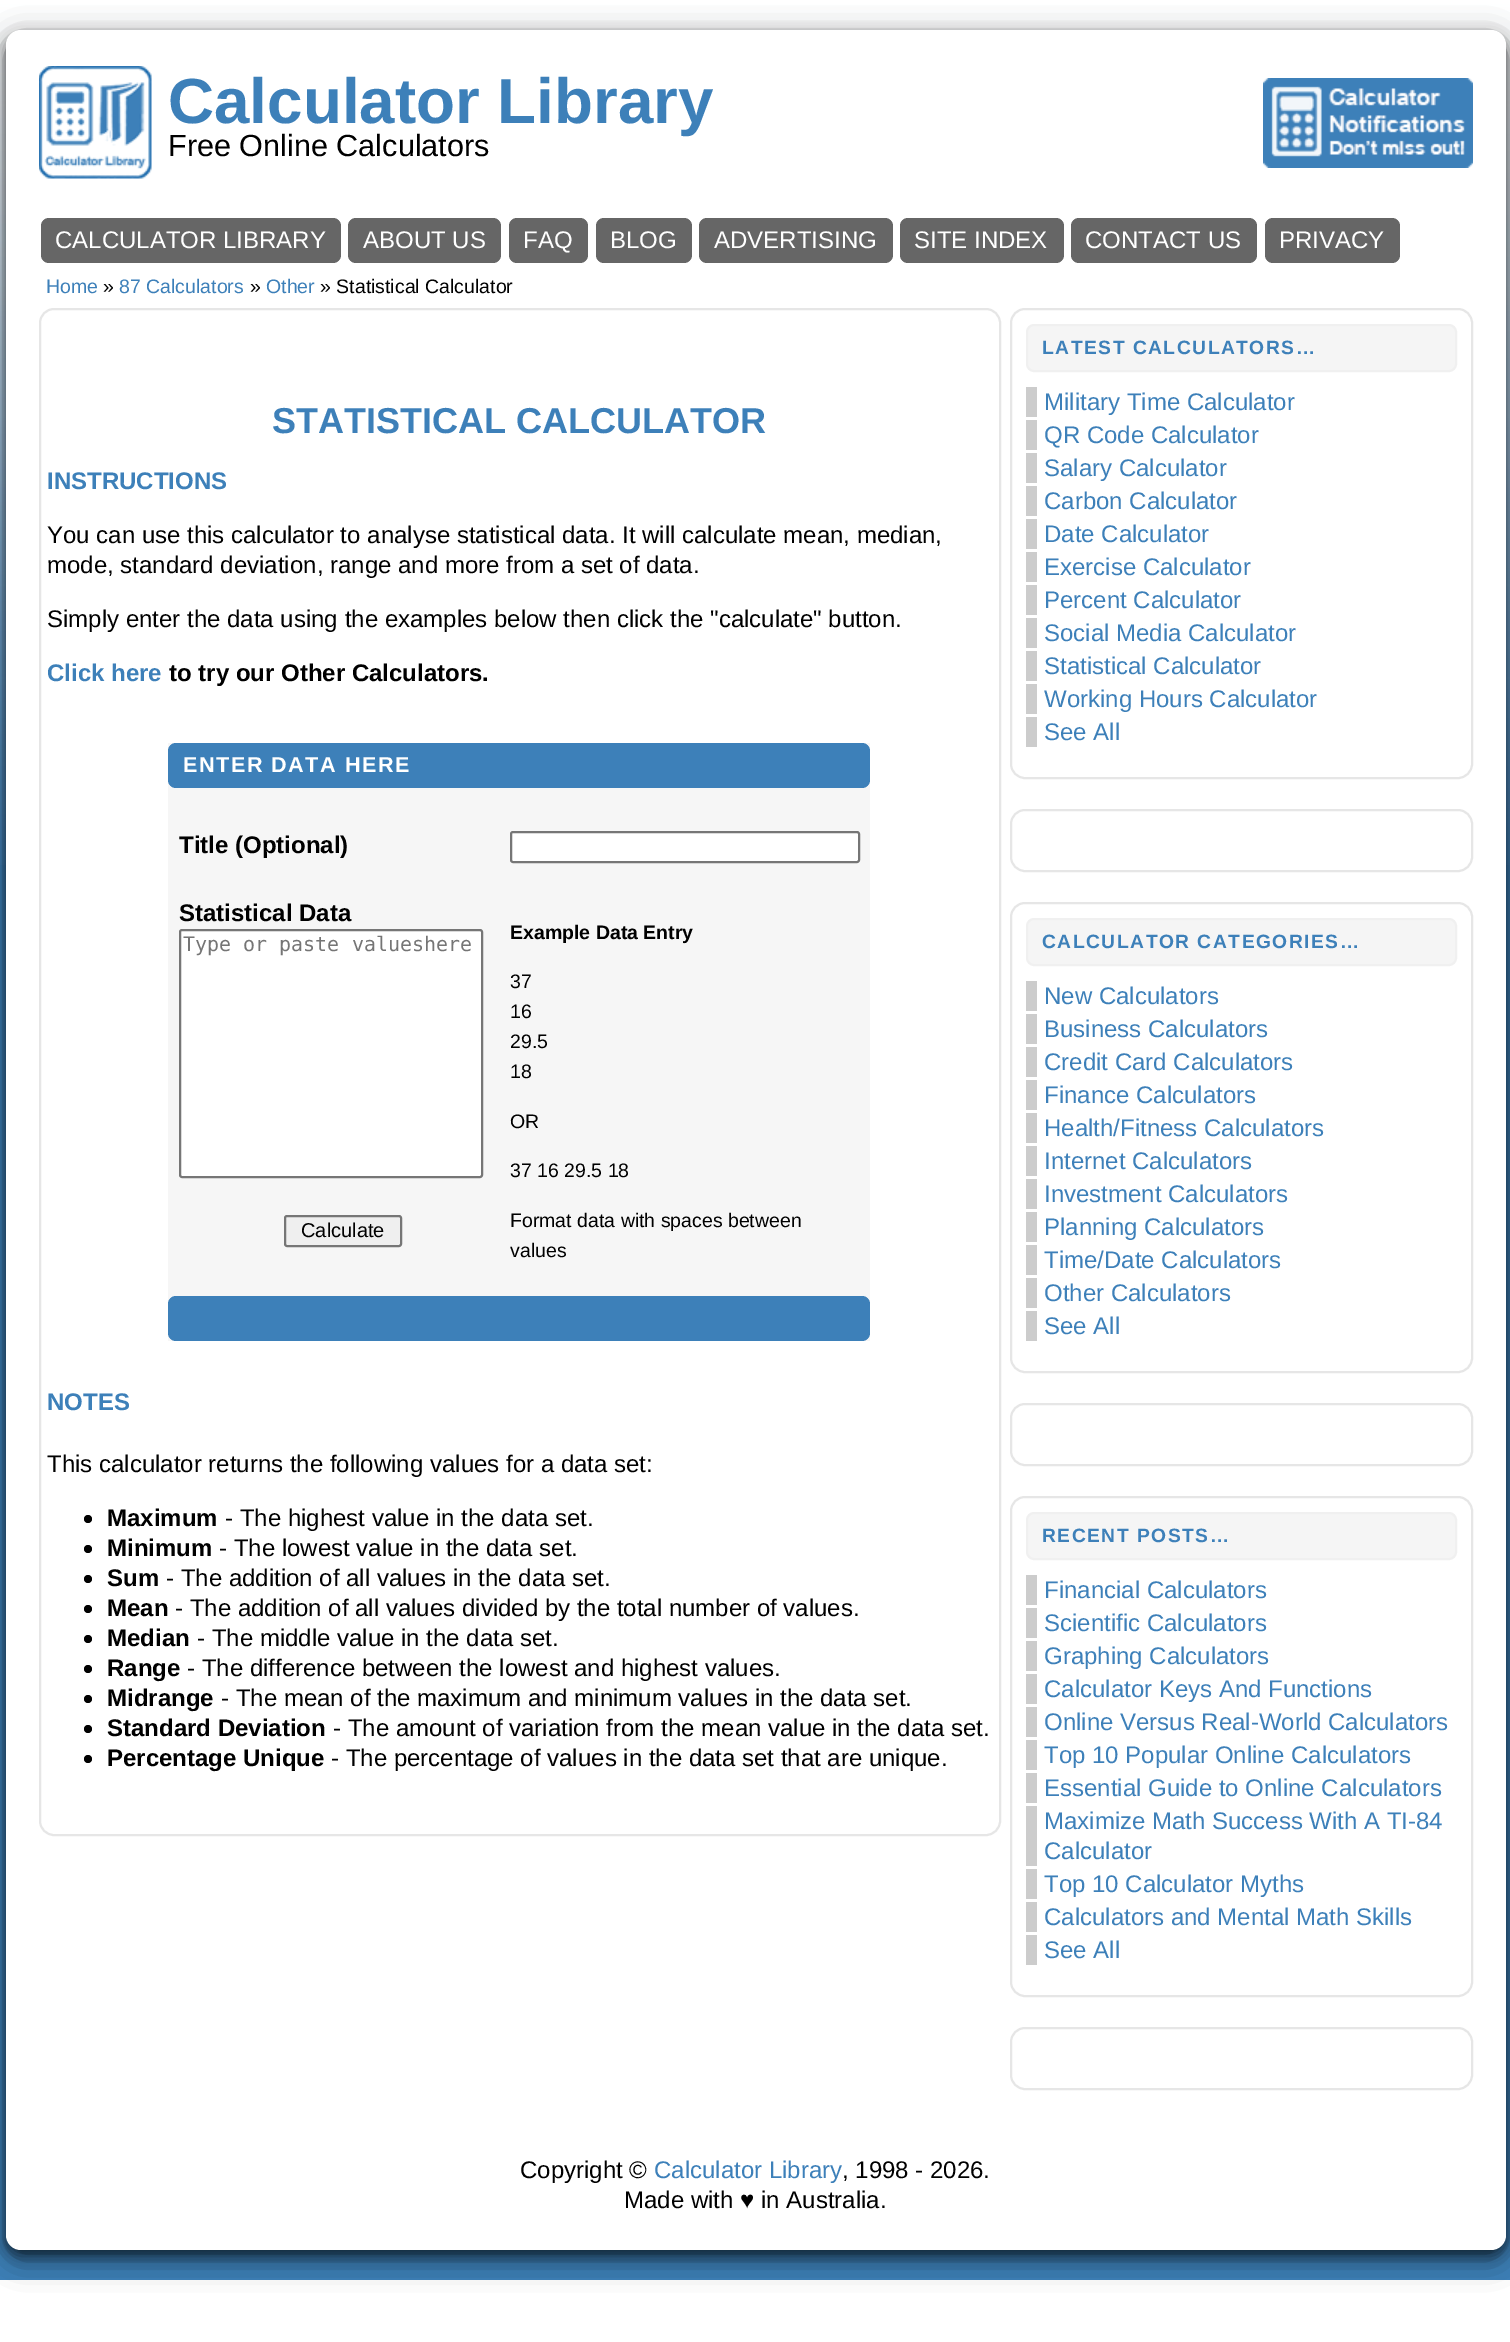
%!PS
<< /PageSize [1510 2342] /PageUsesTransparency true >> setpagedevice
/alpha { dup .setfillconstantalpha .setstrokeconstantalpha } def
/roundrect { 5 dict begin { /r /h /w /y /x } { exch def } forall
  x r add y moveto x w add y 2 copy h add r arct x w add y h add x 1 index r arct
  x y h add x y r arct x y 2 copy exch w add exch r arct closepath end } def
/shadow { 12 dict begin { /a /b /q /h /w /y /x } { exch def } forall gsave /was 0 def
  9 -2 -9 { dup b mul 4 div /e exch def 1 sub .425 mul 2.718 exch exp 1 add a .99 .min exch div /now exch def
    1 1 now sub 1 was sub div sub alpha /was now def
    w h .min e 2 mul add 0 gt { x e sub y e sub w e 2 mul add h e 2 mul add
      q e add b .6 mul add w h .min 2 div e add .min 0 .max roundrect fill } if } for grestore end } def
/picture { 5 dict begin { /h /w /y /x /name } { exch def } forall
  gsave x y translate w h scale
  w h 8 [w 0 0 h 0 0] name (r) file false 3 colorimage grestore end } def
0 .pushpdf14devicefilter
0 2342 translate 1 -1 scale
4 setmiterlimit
1 setgray
0 0 1510 2342 rectfill
0.239 0.502 0.725 setrgbcolor
0 865 1510 1415 rectfill
(img1.rgb) 0 0 1510 865 picture
0 setgray
6 39 1500 2220 15 15 0.49 shadow
6 36 1500 2220 15 6 0.5 shadow
1 setgray
6 30 1500 2220 15 roundrect fill
(img2.rgb) 39 66 113 113 picture
/LiberationSans-Bold [63.75 0 0 -63.75 0 0] selectfont
0.239 0.502 0.725 setrgbcolor
168 123 moveto (Calculator Library) show
/LiberationSans-Regular [30.6 0 0 -30.6 0 0] selectfont
0 setgray
168 156 moveto (Free Online Calculators) show
(img3.rgb) 1263 78 210 90 picture
0.4 setgray
41 218 300 45 8 roundrect fill
/LiberationSans-Regular [24 0 0 -24 0 0] selectfont
1 setgray
55 248 moveto (CALCULATOR LIBRARY) show
0.4 setgray
348 218 153 45 8 roundrect fill
1 setgray
363 248 moveto (ABOUT US) show
0.4 setgray
509 218 79 45 8 roundrect fill
1 setgray
523 248 moveto (FAQ) show
0.4 setgray
596 218 96 45 8 roundrect fill
1 setgray
610 248 moveto (BLOG) show
0.4 setgray
699 218 194 45 8 roundrect fill
1 setgray
714 248 moveto (ADVERTISING) show
0.4 setgray
900 218 164 45 8 roundrect fill
1 setgray
914 248 moveto (SITE INDEX) show
0.4 setgray
1071 218 186 45 8 roundrect fill
1 setgray
1085 248 moveto (CONTACT US) show
0.4 setgray
1265 218 135 45 8 roundrect fill
1 setgray
1279 248 moveto (PRIVACY) show
/LiberationSans-Regular [19.5 0 0 -19.5 0 0] selectfont
0.239 0.502 0.725 setrgbcolor
46 293 moveto (Home) show
0 setgray
103 293 moveto (») show
0.239 0.502 0.725 setrgbcolor
119 293 moveto (87 Calculators) show
0 setgray
250 293 moveto (») show
0.239 0.502 0.725 setrgbcolor
266 293 moveto (Other) show
0 setgray
320 293 moveto (» Statistical Calculator) show
0.902 setgray
2 setlinewidth
40 309 960 1526 14 roundrect stroke
/LiberationSans-Bold [36 0 0 -36 0 0] selectfont
0.239 0.502 0.725 setrgbcolor
272 433 moveto (STATISTICAL CALCULATOR) show
/LiberationSans-Bold [24 0 0 -24 0 0] selectfont
47 489 moveto (INSTRUCTIONS) show
/LiberationSans-Regular [24 0 0 -24 0 0] selectfont
0 setgray
47 543 moveto (You can use this calculator to analyse statistical data. It will calculate mean, median,) show
47 573 moveto (mode, standard deviation, range and more from a set of data.) show
47 627 moveto (Simply enter the data using the examples below then click the "calculate" button.) show
/LiberationSans-Bold [24 0 0 -24 0 0] selectfont
0.239 0.502 0.725 setrgbcolor
47 681 moveto (Click here) show
0 setgray
169 681 moveto (to try our Other Calculators.) show
0.965 setgray
168 743 702 598 rectfill
0.239 0.502 0.725 setrgbcolor
168 743 702 45 8 roundrect fill
/LiberationSans-Bold [21.6 0 0 -21.6 0 0] selectfont
1 setgray
183 772 moveto 1.5 0 (ENTER DATA HERE) ashow
/LiberationSans-Bold [24 0 0 -24 0 0] selectfont
0 setgray
179 853 moveto (Title \(Optional\)) show
1 setgray
511 832 348 30 2 roundrect gsave fill grestore
0.463 setgray
stroke
0 setgray
179 921 moveto (Statistical Data) show
1 setgray
180 930 302 247 2 roundrect gsave fill grestore
0.463 setgray
stroke
/DejaVuSansMono-Regular [20 0 0 -20 0 0] selectfont
0.459 setgray
183 951 moveto (Type or paste valueshere) show
0.937 setgray
285 1216 116 30 2 roundrect gsave fill grestore
0.463 setgray
stroke
/LiberationSans-Regular [20 0 0 -20 0 0] selectfont
0 setgray
301 1237 moveto (Calculate) show
/LiberationSans-Bold [19.5 0 0 -19.5 0 0] selectfont
510 939 moveto (Example Data Entry) show
/LiberationSans-Regular [19.5 0 0 -19.5 0 0] selectfont
510 988 moveto (37) show
510 1018 moveto (16) show
510 1048 moveto (29.5) show
510 1078 moveto (18) show
510 1128 moveto (OR) show
510 1177 moveto (37 16 29.5 18) show
510 1227 moveto (Format data with spaces between) show
510 1257 moveto (values) show
0.239 0.502 0.725 setrgbcolor
168 1296 702 45 8 roundrect fill
/LiberationSans-Bold [24 0 0 -24 0 0] selectfont
47 1410 moveto (NOTES) show
/LiberationSans-Regular [24 0 0 -24 0 0] selectfont
0 setgray
47 1472 moveto (This calculator returns the following values for a data set:) show
newpath 88 1519 4 0 360 arc closepath fill
/LiberationSans-Bold [24 0 0 -24 0 0] selectfont
107 1526 moveto (Maximum) show
/LiberationSans-Regular [24 0 0 -24 0 0] selectfont
225 1526 moveto (- The highest value in the data set.) show
newpath 88 1549 4 0 360 arc closepath fill
/LiberationSans-Bold [24 0 0 -24 0 0] selectfont
107 1556 moveto (Minimum) show
/LiberationSans-Regular [24 0 0 -24 0 0] selectfont
219 1556 moveto (- The lowest value in the data set.) show
newpath 88 1579 4 0 360 arc closepath fill
/LiberationSans-Bold [24 0 0 -24 0 0] selectfont
107 1586 moveto (Sum) show
/LiberationSans-Regular [24 0 0 -24 0 0] selectfont
166 1586 moveto (- The addition of all values in the data set.) show
newpath 88 1609 4 0 360 arc closepath fill
/LiberationSans-Bold [24 0 0 -24 0 0] selectfont
107 1616 moveto (Mean) show
/LiberationSans-Regular [24 0 0 -24 0 0] selectfont
175 1616 moveto (- The addition of all values divided by the total number of values.) show
newpath 88 1639 4 0 360 arc closepath fill
/LiberationSans-Bold [24 0 0 -24 0 0] selectfont
107 1646 moveto (Median) show
/LiberationSans-Regular [24 0 0 -24 0 0] selectfont
197 1646 moveto (- The middle value in the data set.) show
newpath 88 1669 4 0 360 arc closepath fill
/LiberationSans-Bold [24 0 0 -24 0 0] selectfont
107 1676 moveto (Range) show
/LiberationSans-Regular [24 0 0 -24 0 0] selectfont
187 1676 moveto (- The difference between the lowest and highest values.) show
newpath 88 1699 4 0 360 arc closepath fill
/LiberationSans-Bold [24 0 0 -24 0 0] selectfont
107 1706 moveto (Midrange) show
/LiberationSans-Regular [24 0 0 -24 0 0] selectfont
221 1706 moveto (- The mean of the maximum and minimum values in the data set.) show
newpath 88 1729 4 0 360 arc closepath fill
/LiberationSans-Bold [24 0 0 -24 0 0] selectfont
107 1736 moveto (Standard Deviation) show
/LiberationSans-Regular [24 0 0 -24 0 0] selectfont
333 1736 moveto (- The amount of variation from the mean value in the data set.) show
newpath 88 1759 4 0 360 arc closepath fill
/LiberationSans-Bold [24 0 0 -24 0 0] selectfont
107 1766 moveto (Percentage Unique) show
/LiberationSans-Regular [24 0 0 -24 0 0] selectfont
331 1766 moveto (- The percentage of values in the data set that are unique.) show
0.902 setgray
1011 309 461 469 14 roundrect stroke
0.961 setgray
1027 325 429 46 7 roundrect gsave fill grestore
0.941 setgray
stroke
/LiberationSans-Bold [19.25 0 0 -19.25 0 0] selectfont
0.239 0.502 0.725 setrgbcolor
1042 354 moveto 1.5 0 (LATEST CALCULATORS…) ashow
0.8 setgray
1026 387 11 30 rectfill
/LiberationSans-Regular [24 0 0 -24 0 0] selectfont
0.239 0.502 0.725 setrgbcolor
1044 410 moveto (Military Time Calculator) show
0.8 setgray
1026 420 11 30 rectfill
0.239 0.502 0.725 setrgbcolor
1044 443 moveto (QR Code Calculator) show
0.8 setgray
1026 453 11 30 rectfill
0.239 0.502 0.725 setrgbcolor
1044 476 moveto (Salary Calculator) show
0.8 setgray
1026 486 11 30 rectfill
0.239 0.502 0.725 setrgbcolor
1044 509 moveto (Carbon Calculator) show
0.8 setgray
1026 519 11 30 rectfill
0.239 0.502 0.725 setrgbcolor
1044 542 moveto (Date Calculator) show
0.8 setgray
1026 552 11 30 rectfill
0.239 0.502 0.725 setrgbcolor
1044 575 moveto (Exercise Calculator) show
0.8 setgray
1026 585 11 30 rectfill
0.239 0.502 0.725 setrgbcolor
1044 608 moveto (Percent Calculator) show
0.8 setgray
1026 618 11 30 rectfill
0.239 0.502 0.725 setrgbcolor
1044 641 moveto (Social Media Calculator) show
0.8 setgray
1026 651 11 30 rectfill
0.239 0.502 0.725 setrgbcolor
1044 674 moveto (Statistical Calculator) show
0.8 setgray
1026 684 11 30 rectfill
0.239 0.502 0.725 setrgbcolor
1044 707 moveto (Working Hours Calculator) show
0.8 setgray
1026 717 11 30 rectfill
0.239 0.502 0.725 setrgbcolor
1044 740 moveto (See All) show
0.902 setgray
1011 810 461 61 14 roundrect stroke
1011 903 461 469 14 roundrect stroke
0.961 setgray
1027 919 429 46 7 roundrect gsave fill grestore
0.941 setgray
stroke
/LiberationSans-Bold [19.25 0 0 -19.25 0 0] selectfont
0.239 0.502 0.725 setrgbcolor
1042 948 moveto 1.5 0 (CALCULATOR CATEGORIES…) ashow
0.8 setgray
1026 981 11 30 rectfill
/LiberationSans-Regular [24 0 0 -24 0 0] selectfont
0.239 0.502 0.725 setrgbcolor
1044 1004 moveto (New Calculators) show
0.8 setgray
1026 1014 11 30 rectfill
0.239 0.502 0.725 setrgbcolor
1044 1037 moveto (Business Calculators) show
0.8 setgray
1026 1047 11 30 rectfill
0.239 0.502 0.725 setrgbcolor
1044 1070 moveto (Credit Card Calculators) show
0.8 setgray
1026 1080 11 30 rectfill
0.239 0.502 0.725 setrgbcolor
1044 1103 moveto (Finance Calculators) show
0.8 setgray
1026 1113 11 30 rectfill
0.239 0.502 0.725 setrgbcolor
1044 1136 moveto (Health/Fitness Calculators) show
0.8 setgray
1026 1146 11 30 rectfill
0.239 0.502 0.725 setrgbcolor
1044 1169 moveto (Internet Calculators) show
0.8 setgray
1026 1179 11 30 rectfill
0.239 0.502 0.725 setrgbcolor
1044 1202 moveto (Investment Calculators) show
0.8 setgray
1026 1212 11 30 rectfill
0.239 0.502 0.725 setrgbcolor
1044 1235 moveto (Planning Calculators) show
0.8 setgray
1026 1245 11 30 rectfill
0.239 0.502 0.725 setrgbcolor
1044 1268 moveto (Time/Date Calculators) show
0.8 setgray
1026 1278 11 30 rectfill
0.239 0.502 0.725 setrgbcolor
1044 1301 moveto (Other Calculators) show
0.8 setgray
1026 1311 11 30 rectfill
0.239 0.502 0.725 setrgbcolor
1044 1334 moveto (See All) show
0.902 setgray
1011 1404 461 61 14 roundrect stroke
1011 1497 461 499 14 roundrect stroke
0.961 setgray
1027 1513 429 46 7 roundrect gsave fill grestore
0.941 setgray
stroke
/LiberationSans-Bold [19.25 0 0 -19.25 0 0] selectfont
0.239 0.502 0.725 setrgbcolor
1042 1542 moveto 1.5 0 (RECENT POSTS…) ashow
0.8 setgray
1026 1575 11 30 rectfill
/LiberationSans-Regular [24 0 0 -24 0 0] selectfont
0.239 0.502 0.725 setrgbcolor
1044 1598 moveto (Financial Calculators) show
0.8 setgray
1026 1608 11 30 rectfill
0.239 0.502 0.725 setrgbcolor
1044 1631 moveto (Scientific Calculators) show
0.8 setgray
1026 1641 11 30 rectfill
0.239 0.502 0.725 setrgbcolor
1044 1664 moveto (Graphing Calculators) show
0.8 setgray
1026 1674 11 30 rectfill
0.239 0.502 0.725 setrgbcolor
1044 1697 moveto (Calculator Keys And Functions) show
0.8 setgray
1026 1707 11 30 rectfill
0.239 0.502 0.725 setrgbcolor
1044 1730 moveto (Online Versus Real-World Calculators) show
0.8 setgray
1026 1740 11 30 rectfill
0.239 0.502 0.725 setrgbcolor
1044 1763 moveto (Top 10 Popular Online Calculators) show
0.8 setgray
1026 1773 11 30 rectfill
0.239 0.502 0.725 setrgbcolor
1044 1796 moveto (Essential Guide to Online Calculators) show
0.8 setgray
1026 1806 11 60 rectfill
0.239 0.502 0.725 setrgbcolor
1044 1829 moveto (Maximize Math Success With A TI-84) show
1044 1859 moveto (Calculator) show
0.8 setgray
1026 1869 11 30 rectfill
0.239 0.502 0.725 setrgbcolor
1044 1892 moveto (Top 10 Calculator Myths) show
0.8 setgray
1026 1902 11 30 rectfill
0.239 0.502 0.725 setrgbcolor
1044 1925 moveto (Calculators and Mental Math Skills) show
0.8 setgray
1026 1935 11 30 rectfill
0.239 0.502 0.725 setrgbcolor
1044 1958 moveto (See All) show
0.902 setgray
1011 2028 461 61 14 roundrect stroke
0 setgray
520 2178 moveto (Copyright ©) show
0.239 0.502 0.725 setrgbcolor
654 2178 moveto (Calculator Library) show
0 setgray
842 2178 moveto (, 1998 - 2026.) show
624 2208 moveto (Made with ♥ in Australia.) show
.poppdf14devicefilter showpage
